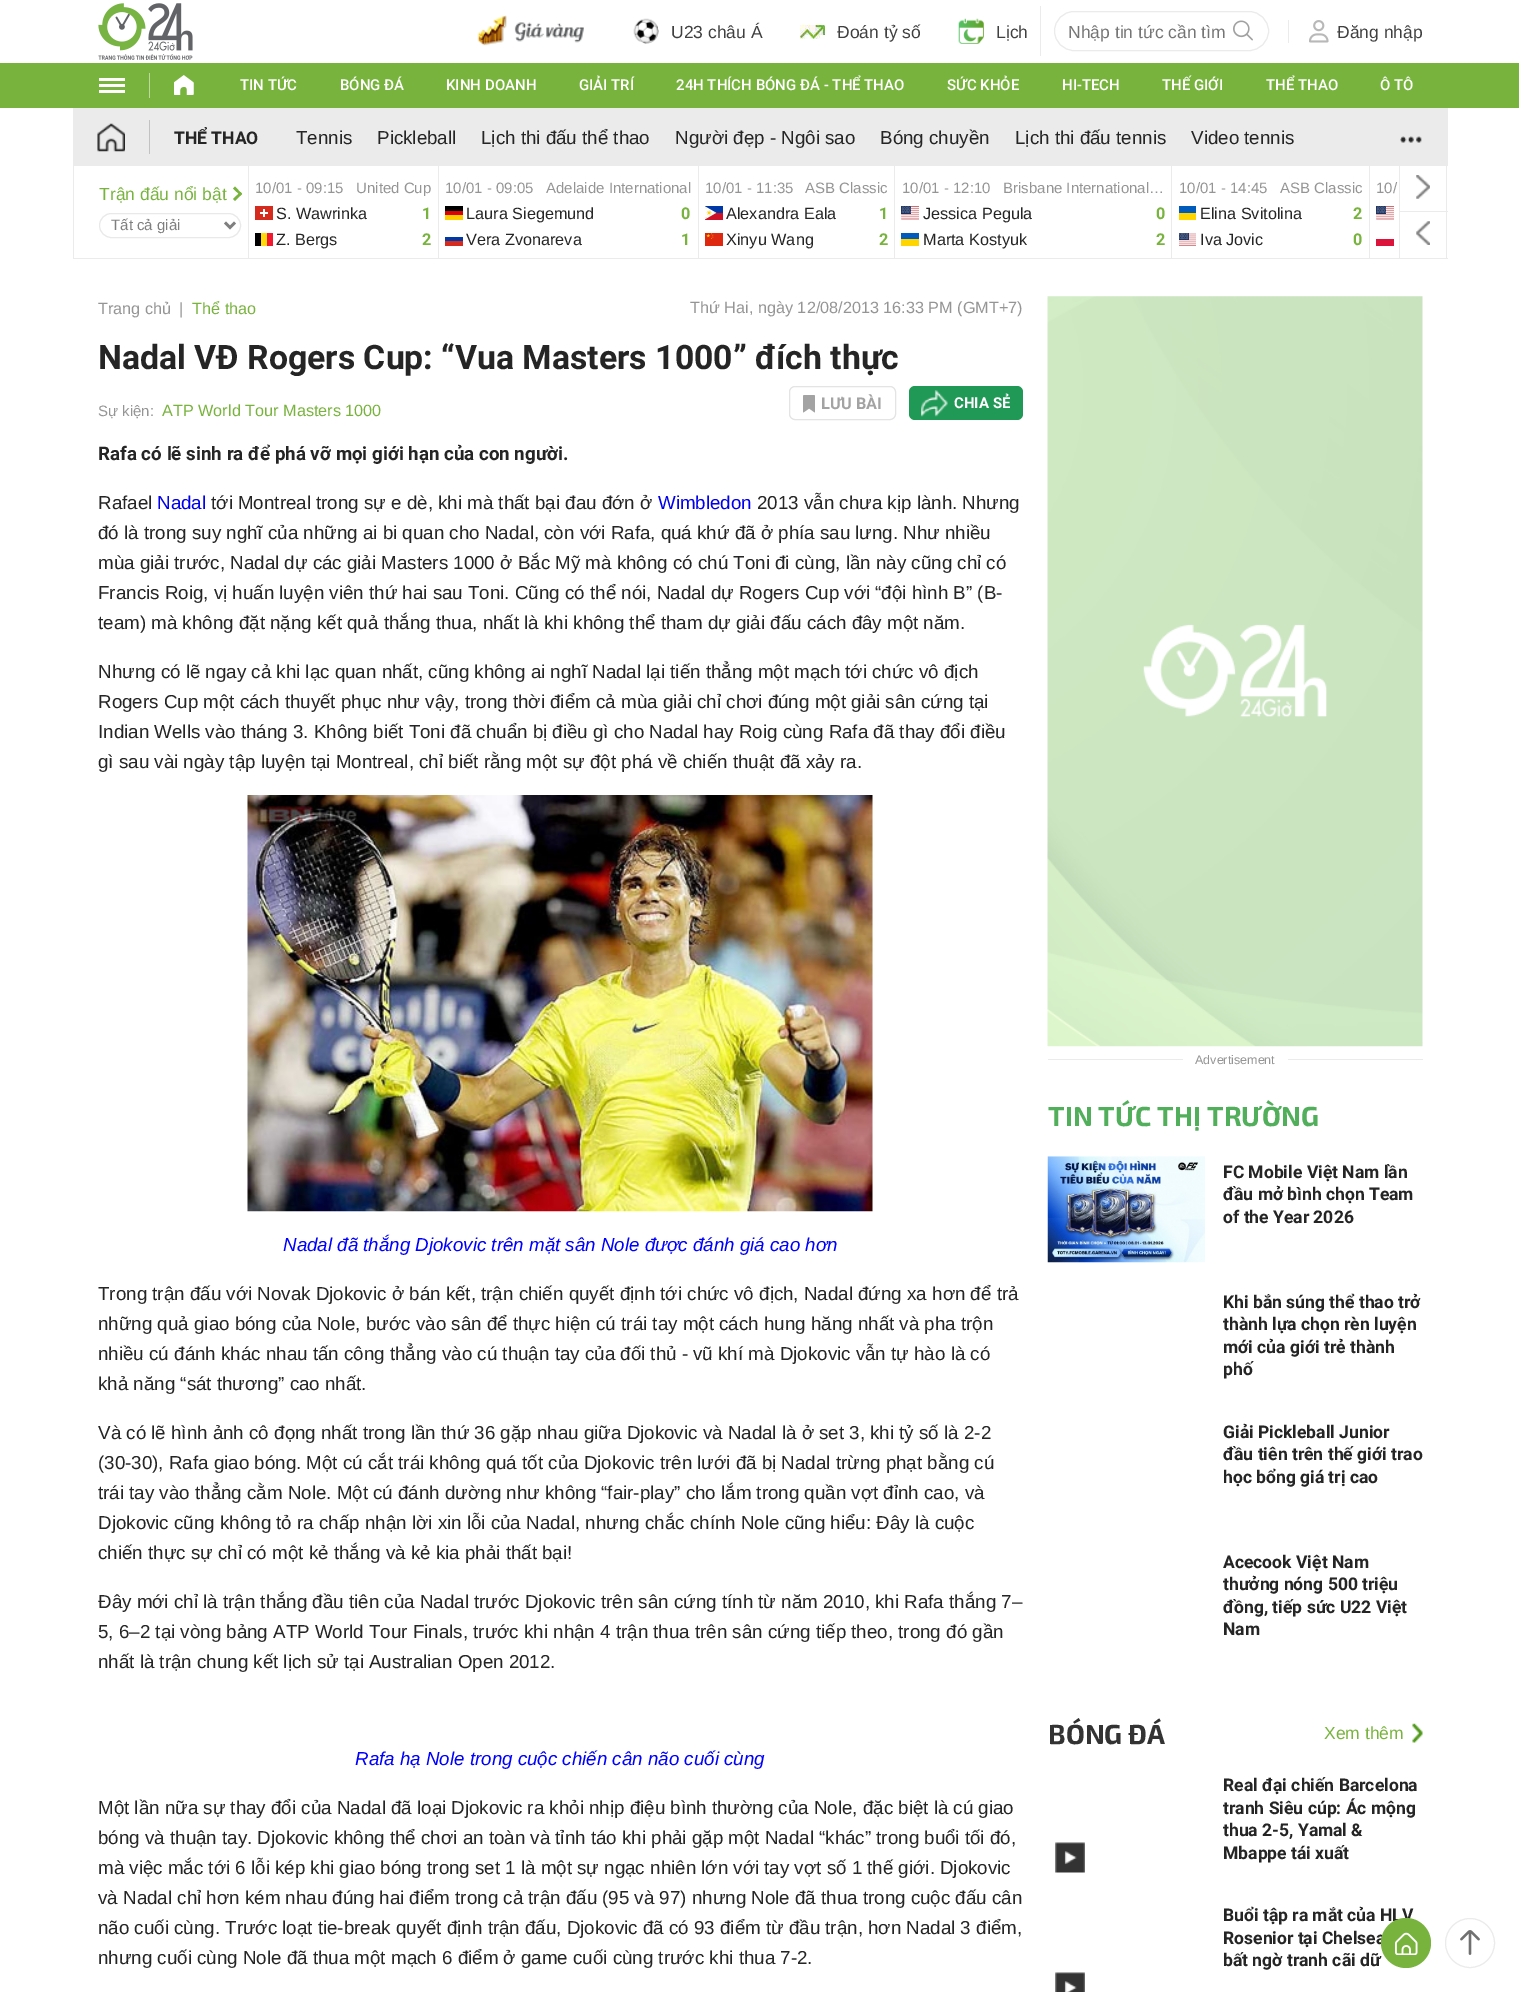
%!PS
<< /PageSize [1519 1992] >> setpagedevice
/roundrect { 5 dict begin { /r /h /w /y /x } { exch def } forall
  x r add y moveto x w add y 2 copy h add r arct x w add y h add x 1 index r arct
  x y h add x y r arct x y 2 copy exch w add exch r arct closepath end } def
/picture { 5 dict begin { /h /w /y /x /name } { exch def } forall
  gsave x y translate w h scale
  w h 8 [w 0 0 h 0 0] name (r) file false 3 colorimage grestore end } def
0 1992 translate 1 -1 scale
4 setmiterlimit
1 setgray
0 0 1519 1992 rectfill
(img1.rgb) 98 3 95 57 picture
0.922 setgray
1040 6 1 50 rectfill
(img2.rgb) 477 15 107 31 picture
(img3.rgb) 633 18 26 26 picture
/LiberationSans-Regular [17.5 0 0 -17.5 0 0] selectfont
0.251 setgray
671 38 moveto (U23 châu Á) show
(img4.rgb) 800 25 25 14 picture
837 38 moveto (Đoán tỷ số) show
(img5.rgb) 958 18 26 26 picture
996 38 moveto (Lịch) show
0.922 setgray
1054.5 11.5 214 39 19.5 roundrect stroke
0.459 setgray
1068 38 moveto (Nhập tin tức cần tìm) show
(img6.rgb) 1233 20 20 21 picture
0.922 setgray
1288 20 1 23 rectfill
(img7.rgb) 1309 20 20 23 picture
0.251 setgray
1337 38 moveto (Đăng nhập) show
0.471 0.706 0.239 setrgbcolor
0 63 1519 45 rectfill
1 setgray
99 78 26 3 rectfill
99 84 26 3 rectfill
99 90 26 3 rectfill
0.737 0.855 0.62 setrgbcolor
149 73 1 25 rectfill
(img8.rgb) 174 75 20 20 picture
/Roboto-Medium [15 0 0 -15 0 0] selectfont
1 setgray
240 90 moveto (TIN TỨC) show
340 90 moveto (BÓNG ĐÁ) show
446 90 moveto (KINH DOANH) show
579 90 moveto (GIẢI TRÍ) show
676 90 moveto (24H THÍCH BÓNG ĐÁ - THỂ THAO) show
947 90 moveto (SỨC KHỎE) show
1062 90 moveto (HI-TECH) show
1162 90 moveto (THẾ GIỚI) show
1266 90 moveto (THỂ THAO) show
1380 90 moveto (Ô TÔ) show
0.922 setgray
73 108 1375 58 rectfill
(img9.rgb) 97 123 28 29 picture
0.761 setgray
149 120 1 34 rectfill
/Roboto-Bold [17.5 0 0 -17.5 0 0] selectfont
0.145 setgray
174 144 moveto (THỂ THAO) show
/LiberationSans-Regular [18.75 0 0 -18.75 0 0] selectfont
296 144 moveto (Tennis) show
377 144 moveto (Pickleball) show
481 144 moveto (Lịch thi đấu thể thao) show
675 144 moveto (Người đẹp - Ngôi sao) show
880 144 moveto (Bóng chuyền) show
1015 144 moveto (Lịch thi đấu tennis) show
1191 144 moveto (Video tennis) show
(img10.rgb) 1400 136 22 7 picture
0.922 setgray
73 258 1375 1 rectfill
73 166 1 93 rectfill
248 166 1 92 rectfill
/LiberationSans-Regular [17.5 0 0 -17.5 0 0] selectfont
0.471 0.706 0.239 setrgbcolor
99 200 moveto (Trận đấu nổi bật) show
newpath 233 188.5 moveto 235 186.5 lineto 242 194 lineto 240.5 195.5 lineto closepath fill
newpath 233 199 moveto 240.5 192 lineto 242 194 lineto 235 201 lineto closepath fill
0.914 setgray
99.5 213.5 141 24 12 roundrect stroke
0.498 setgray
2.5 setlinewidth
newpath 225 222.5 moveto 230 227.5 lineto 235 222.5 lineto stroke
/LiberationSans-Regular [15 0 0 -15 0 0] selectfont
111 230 moveto (Tất cả giải) show
0.922 setgray
438 166 1 92 rectfill
0.584 setgray
255 193 moveto (10/01 - 09:15) show
356 193 moveto (United Cup) show
0.835 0.169 0.118 setrgbcolor
255 206 18 14 rectfill
1 setgray
260 212 8 2 rectfill
263 209 2 8 rectfill
/LiberationSans-Regular [16.25 0 0 -16.25 0 0] selectfont
0.145 setgray
276 219 moveto (S. Wawrinka) show
/Roboto-Bold [16.25 0 0 -16.25 0 0] selectfont
0.471 0.706 0.239 setrgbcolor
422 219 moveto (1) show
0 setgray
255 233 6 13 rectfill
1 0.851 0.047 setrgbcolor
261 233 6 13 rectfill
0.953 0.094 0.188 setrgbcolor
267 233 6 13 rectfill
/LiberationSans-Regular [16.25 0 0 -16.25 0 0] selectfont
0.145 setgray
276 245 moveto (Z. Bergs) show
/Roboto-Bold [16.25 0 0 -16.25 0 0] selectfont
0.471 0.706 0.239 setrgbcolor
422 245 moveto (2) show
0.922 setgray
698 166 1 92 rectfill
/LiberationSans-Regular [15 0 0 -15 0 0] selectfont
0.584 setgray
445 193 moveto (10/01 - 09:05) show
546 193 moveto (Adelaide International) show
1 0.808 0 setrgbcolor
445 215 18 5 rectfill
0 setgray
445 206 18 5 rectfill
0.867 0 0 setrgbcolor
445 211 18 4 rectfill
/LiberationSans-Regular [16.25 0 0 -16.25 0 0] selectfont
0.145 setgray
466 219 moveto (Laura Siegemund) show
/Roboto-Bold [16.25 0 0 -16.25 0 0] selectfont
0.471 0.706 0.239 setrgbcolor
681 219 moveto (0) show
0 0.224 0.651 setrgbcolor
445 237 18 4 rectfill
0.835 0.169 0.118 setrgbcolor
445 241 18 5 rectfill
/LiberationSans-Regular [16.25 0 0 -16.25 0 0] selectfont
0.145 setgray
466 245 moveto (Vera Zvonareva) show
/Roboto-Bold [16.25 0 0 -16.25 0 0] selectfont
0.471 0.706 0.239 setrgbcolor
681 245 moveto (1) show
0.922 setgray
894 166 1 92 rectfill
/LiberationSans-Regular [15 0 0 -15 0 0] selectfont
0.584 setgray
705 193 moveto (10/01 - 11:35) show
805 193 moveto (ASB Classic) show
(img11.rgb) 705 206 18 14 picture
/LiberationSans-Regular [16.25 0 0 -16.25 0 0] selectfont
0.145 setgray
726 219 moveto (Alexandra Eala) show
/Roboto-Bold [16.25 0 0 -16.25 0 0] selectfont
0.471 0.706 0.239 setrgbcolor
879 219 moveto (1) show
(img12.rgb) 705 233 18 13 picture
/LiberationSans-Regular [16.25 0 0 -16.25 0 0] selectfont
0.145 setgray
726 245 moveto (Xinyu Wang) show
/Roboto-Bold [16.25 0 0 -16.25 0 0] selectfont
0.471 0.706 0.239 setrgbcolor
879 245 moveto (2) show
0.922 setgray
1171 166 1 92 rectfill
/LiberationSans-Regular [15 0 0 -15 0 0] selectfont
0.584 setgray
902 193 moveto (10/01 - 12:10) show
1003 193 moveto (Brisbane International…) show
(img13.rgb) 901 206 18 14 picture
/LiberationSans-Regular [16.25 0 0 -16.25 0 0] selectfont
0.145 setgray
923 219 moveto (Jessica Pegula) show
/Roboto-Bold [16.25 0 0 -16.25 0 0] selectfont
0.471 0.706 0.239 setrgbcolor
1156 219 moveto (0) show
1 0.835 0 setrgbcolor
901 239 18 7 rectfill
0 0.357 0.733 setrgbcolor
901 233 18 6 rectfill
/LiberationSans-Regular [16.25 0 0 -16.25 0 0] selectfont
0.145 setgray
923 245 moveto (Marta Kostyuk) show
/Roboto-Bold [16.25 0 0 -16.25 0 0] selectfont
0.471 0.706 0.239 setrgbcolor
1156 245 moveto (2) show
0.922 setgray
1369 166 1 92 rectfill
/LiberationSans-Regular [15 0 0 -15 0 0] selectfont
0.584 setgray
1179 193 moveto (10/01 - 14:45) show
1280 193 moveto (ASB Classic) show
1 0.835 0 setrgbcolor
1179 213 17 7 rectfill
0 0.357 0.733 setrgbcolor
1179 206 17 7 rectfill
/LiberationSans-Regular [16.25 0 0 -16.25 0 0] selectfont
0.145 setgray
1200 219 moveto (Elina Svitolina) show
/Roboto-Bold [16.25 0 0 -16.25 0 0] selectfont
0.471 0.706 0.239 setrgbcolor
1353 219 moveto (2) show
(img14.rgb) 1179 233 17 13 picture
/LiberationSans-Regular [16.25 0 0 -16.25 0 0] selectfont
0.145 setgray
1200 245 moveto (Iva Jovic) show
/Roboto-Bold [16.25 0 0 -16.25 0 0] selectfont
0.471 0.706 0.239 setrgbcolor
1353 245 moveto (0) show
/LiberationSans-Regular [15 0 0 -15 0 0] selectfont
0.584 setgray
1376 193 moveto (10/) show
(img13.rgb) 1376 206 18 14 picture
0.863 0.078 0.235 setrgbcolor
1376 239 18 7 rectfill
0.922 setgray
1446 166 1 93 rectfill
1399 211 49 1 rectfill
1399 166 1 93 rectfill
(img15.rgb) 1416 175 14 24 picture
(img16.rgb) 1416 221 14 24 picture
/LiberationSans-Regular [16.25 0 0 -16.25 0 0] selectfont
0.584 setgray
98 314 moveto (Trang chủ) show
179 314 moveto (|) show
0.471 0.706 0.239 setrgbcolor
192 314 moveto (Thể thao) show
0.584 setgray
690 313 moveto (Thứ Hai, ngày 12/08/2013 16:33 PM \(GMT+7\)) show
/Roboto-Bold [33.75 0 0 -33.75 0 0] selectfont
0.145 setgray
98 369 moveto (Nadal VĐ Rogers Cup: “Vua Masters 1000” đích thực) show
0.894 setgray
1 setlinewidth
789.5 386.5 106 33 5.5 roundrect stroke
(img17.rgb) 803 395 12 18 picture
/Roboto-Bold [16.25 0 0 -16.25 0 0] selectfont
0.639 setgray
821 409 moveto (LƯU BÀI) show
0.125 0.6 0.337 setrgbcolor
909 386 114 34 6 roundrect fill
(img18.rgb) 921 390 27 27 picture
/Roboto-Bold [15 0 0 -15 0 0] selectfont
1 setgray
954 408 moveto (CHIA SẺ) show
/LiberationSans-Regular [15 0 0 -15 0 0] selectfont
0.584 setgray
98 416 moveto (Sự kiện:) show
/LiberationSans-Regular [16.25 0 0 -16.25 0 0] selectfont
0.471 0.706 0.239 setrgbcolor
162 416 moveto (ATP World Tour Masters 1000) show
/Roboto-Bold [18.75 0 0 -18.75 0 0] selectfont
0.145 setgray
98 460 moveto (Rafa có lẽ sinh ra để phá vỡ mọi giới hạn của con người.) show
/LiberationSans-Regular [18.75 0 0 -18.75 0 0] selectfont
98 509 moveto (Rafael) show
0 0 0.933 setrgbcolor
157 509 moveto (Nadal) show
0.145 setgray
211 509 moveto (tới Montreal trong sự e dè, khi mà thất bại đau đớn ở) show
0 0 0.933 setrgbcolor
658 509 moveto (Wimbledon) show
0.145 setgray
757 509 moveto (2013 vẫn chưa kịp lành. Nhưng) show
98 539 moveto (đó là trong suy nghĩ của những ai bi quan cho Nadal, còn với Rafa, quá khứ đã ở phía sau lưng. Như nhiều) show
98 569 moveto (mùa giải trước, Nadal dự các giải Masters 1000 ở Bắc Mỹ mà không có chú Toni đi cùng, lần này cũng chỉ có) show
98 599 moveto (Francis Roig, vị huấn luyện viên thứ hai sau Toni. Cũng có thể nói, Nadal dự Rogers Cup với “đội hình B” \(B-) show
98 629 moveto (team\) mà không đặt nặng kết quả thắng thua, nhất là khi không thể tham dự giải đấu cách đây một năm.) show
98 678 moveto (Nhưng có lẽ ngay cả khi lạc quan nhất, cũng không ai nghĩ Nadal lại tiến thẳng một mạch tới chức vô địch) show
98 708 moveto (Rogers Cup một cách thuyết phục như vậy, trong thời điểm cả mùa giải chỉ chơi đúng một giải sân cứng tại) show
98 738 moveto (Indian Wells vào tháng 3. Không biết Toni đã chuẩn bị điều gì cho Nadal hay Roig cùng Rafa đã thay đổi điều) show
98 768 moveto (gì sau vài ngày tập luyện tại Montreal, chỉ biết rằng một sự đột phá về chiến thuật đã xảy ra.) show
(img19.rgb) 247 795 626 417 picture
/LiberationSans-Italic [18.75 0 0 -18.75 0 0] selectfont
0 0 1 setrgbcolor
283 1251 moveto (Nadal đã thắng Djokovic trên mặt sân Nole được đánh giá cao hơn) show
/LiberationSans-Regular [18.75 0 0 -18.75 0 0] selectfont
0.145 setgray
98 1300 moveto (Trong trận đấu với Novak Djokovic ở bán kết, trận chiến quyết định tới chức vô địch, Nadal đứng xa hơn để trả) show
98 1330 moveto (những quả giao bóng của Nole, bước vào sân để thực hiện cú trái tay một cách hung hăng nhất và pha trộn) show
98 1360 moveto (nhiều cú đánh khác nhau tấn công thẳng vào cú thuận tay của đối thủ - vũ khí mà Djokovic vẫn tự hào là có) show
98 1390 moveto (khả năng “sát thương” cao nhất.) show
98 1439 moveto (Và có lẽ hình ảnh cô đọng nhất trong lần thứ 36 gặp nhau giữa Djokovic và Nadal là ở set 3, khi tỷ số là 2-2) show
98 1469 moveto (\(30-30\), Rafa giao bóng. Một cú cắt trái không quá tốt của Djokovic trên lưới đã bị Nadal trừng phạt bằng cú) show
98 1499 moveto (trái tay vào thẳng cằm Nole. Một cú đánh dường như không “fair-play” cho lắm trong quần vợt đỉnh cao, và) show
98 1529 moveto (Djokovic cũng không tỏ ra chấp nhận lời xin lỗi của Nadal, nhưng chắc chính Nole cũng hiểu: Đây là cuộc) show
98 1559 moveto (chiến thực sự chỉ có một kẻ thắng và kẻ kia phải thất bại!) show
98 1608 moveto (Đây mới chỉ là trận thắng đầu tiên của Nadal trước Djokovic trên sân cứng tính từ năm 2010, khi Rafa thắng 7–) show
98 1638 moveto (5, 6–2 tại vòng bảng ATP World Tour Finals, trước khi nhận 4 trận thua trên sân cứng tiếp theo, trong đó gần) show
98 1668 moveto (nhất là trận chung kết lịch sử tại Australian Open 2012.) show
/LiberationSans-Italic [18.75 0 0 -18.75 0 0] selectfont
0 0 1 setrgbcolor
355 1765 moveto (Rafa hạ Nole trong cuộc chiến cân não cuối cùng) show
/LiberationSans-Regular [18.75 0 0 -18.75 0 0] selectfont
0.145 setgray
98 1814 moveto (Một lần nữa sự thay đổi của Nadal đã loại Djokovic ra khỏi nhịp điệu bình thường của Nole, đặc biệt là cú giao) show
98 1844 moveto (bóng và thuận tay. Djokovic không thể chơi an toàn và tỉnh táo khi phải gặp một Nadal “khác” trong buổi tối đó,) show
98 1874 moveto (mà việc mắc tới 6 lỗi kép khi giao bóng trong set 1 là một sự ngạc nhiên lớn với tay vợt số 1 thế giới. Djokovic) show
98 1904 moveto (và Nadal chỉ hơn kém nhau đúng hai điểm trong cả trận đấu \(95 và 97\) nhưng Nole đã thua trong cuộc đấu cân) show
98 1934 moveto (não cuối cùng. Trước loạt tie-break quyết định trận đấu, Djokovic đã có 93 điểm từ đầu trận, hơn Nadal 3 điểm,) show
98 1964 moveto (nhưng cuối cùng Nole đã thua một mạch 6 điểm ở game cuối cùng trước khi thua 7-2.) show
(img20.rgb) 1047 296 376 751 picture
0.922 setgray
1048 1059 135 1 rectfill
/LiberationSans-Regular [12.5 0 0 -12.5 0 0] selectfont
0.584 setgray
1195 1064 moveto (Advertisement) show
0.922 setgray
1288 1059 135 1 rectfill
/Exo2-Bold [27.5 0 0 -27.5 0 0] selectfont
0.318 0.682 0.353 setrgbcolor
1048 1126 moveto (TIN TỨC THỊ TRƯỜNG) show
(img21.rgb) 1047 1156 158 107 picture
/Roboto-Bold [17.5 0 0 -17.5 0 0] selectfont
0.145 setgray
1223 1178 moveto (FC Mobile Việt Nam lần) show
1223 1200 moveto (đầu mở bình chọn Team) show
1223 1223 moveto (of the Year 2026) show
1223 1308 moveto (Khi bắn súng thể thao trở) show
1223 1330 moveto (thành lựa chọn rèn luyện) show
1223 1353 moveto (mới của giới trẻ thành) show
1223 1375 moveto (phố) show
1223 1438 moveto (Giải Pickleball Junior) show
1223 1460 moveto (đầu tiên trên thế giới trao) show
1223 1483 moveto (học bổng giá trị cao) show
1223 1568 moveto (Acecook Việt Nam) show
1223 1590 moveto (thưởng nóng 500 triệu) show
1223 1613 moveto (đồng, tiếp sức U22 Việt) show
1223 1635 moveto (Nam) show
/Exo2-Bold [27.5 0 0 -27.5 0 0] selectfont
0.2 setgray
1048 1744 moveto (BÓNG ĐÁ) show
/LiberationSans-Regular [17.5 0 0 -17.5 0 0] selectfont
0.471 0.706 0.239 setrgbcolor
1324 1739 moveto (Xem thêm) show
(img22.rgb) 1412 1723 11 20 picture
(img23.rgb) 1055 1842 30 31 picture
/Roboto-Bold [17.5 0 0 -17.5 0 0] selectfont
0.145 setgray
1223 1791 moveto (Real đại chiến Barcelona) show
gsave
1223 1774 200 90 rectclip
1223 1814 moveto (tranh Siêu cúp: Ác mộng) show
1223 1836 moveto (thua 2-5, Yamal &) show
grestore
1223 1859 moveto (Mbappe tái xuất) show
1223 1921 moveto (Buổi tập ra mắt của HLV) show
1223 1944 moveto (Rosenior tại Chelsea) show
1223 1966 moveto (bất ngờ tranh cãi dữ) show
(img24.rgb) 1055 1972 30 20 picture
0.922 setgray
newpath 1470 1943 24.5 0 360 arc closepath stroke
(img25.rgb) 1460 1930 20 25 picture
0.471 0.706 0.239 setrgbcolor
newpath 1406 1943 25 0 360 arc closepath fill
(img26.rgb) 1395 1932 23 23 picture
showpage
